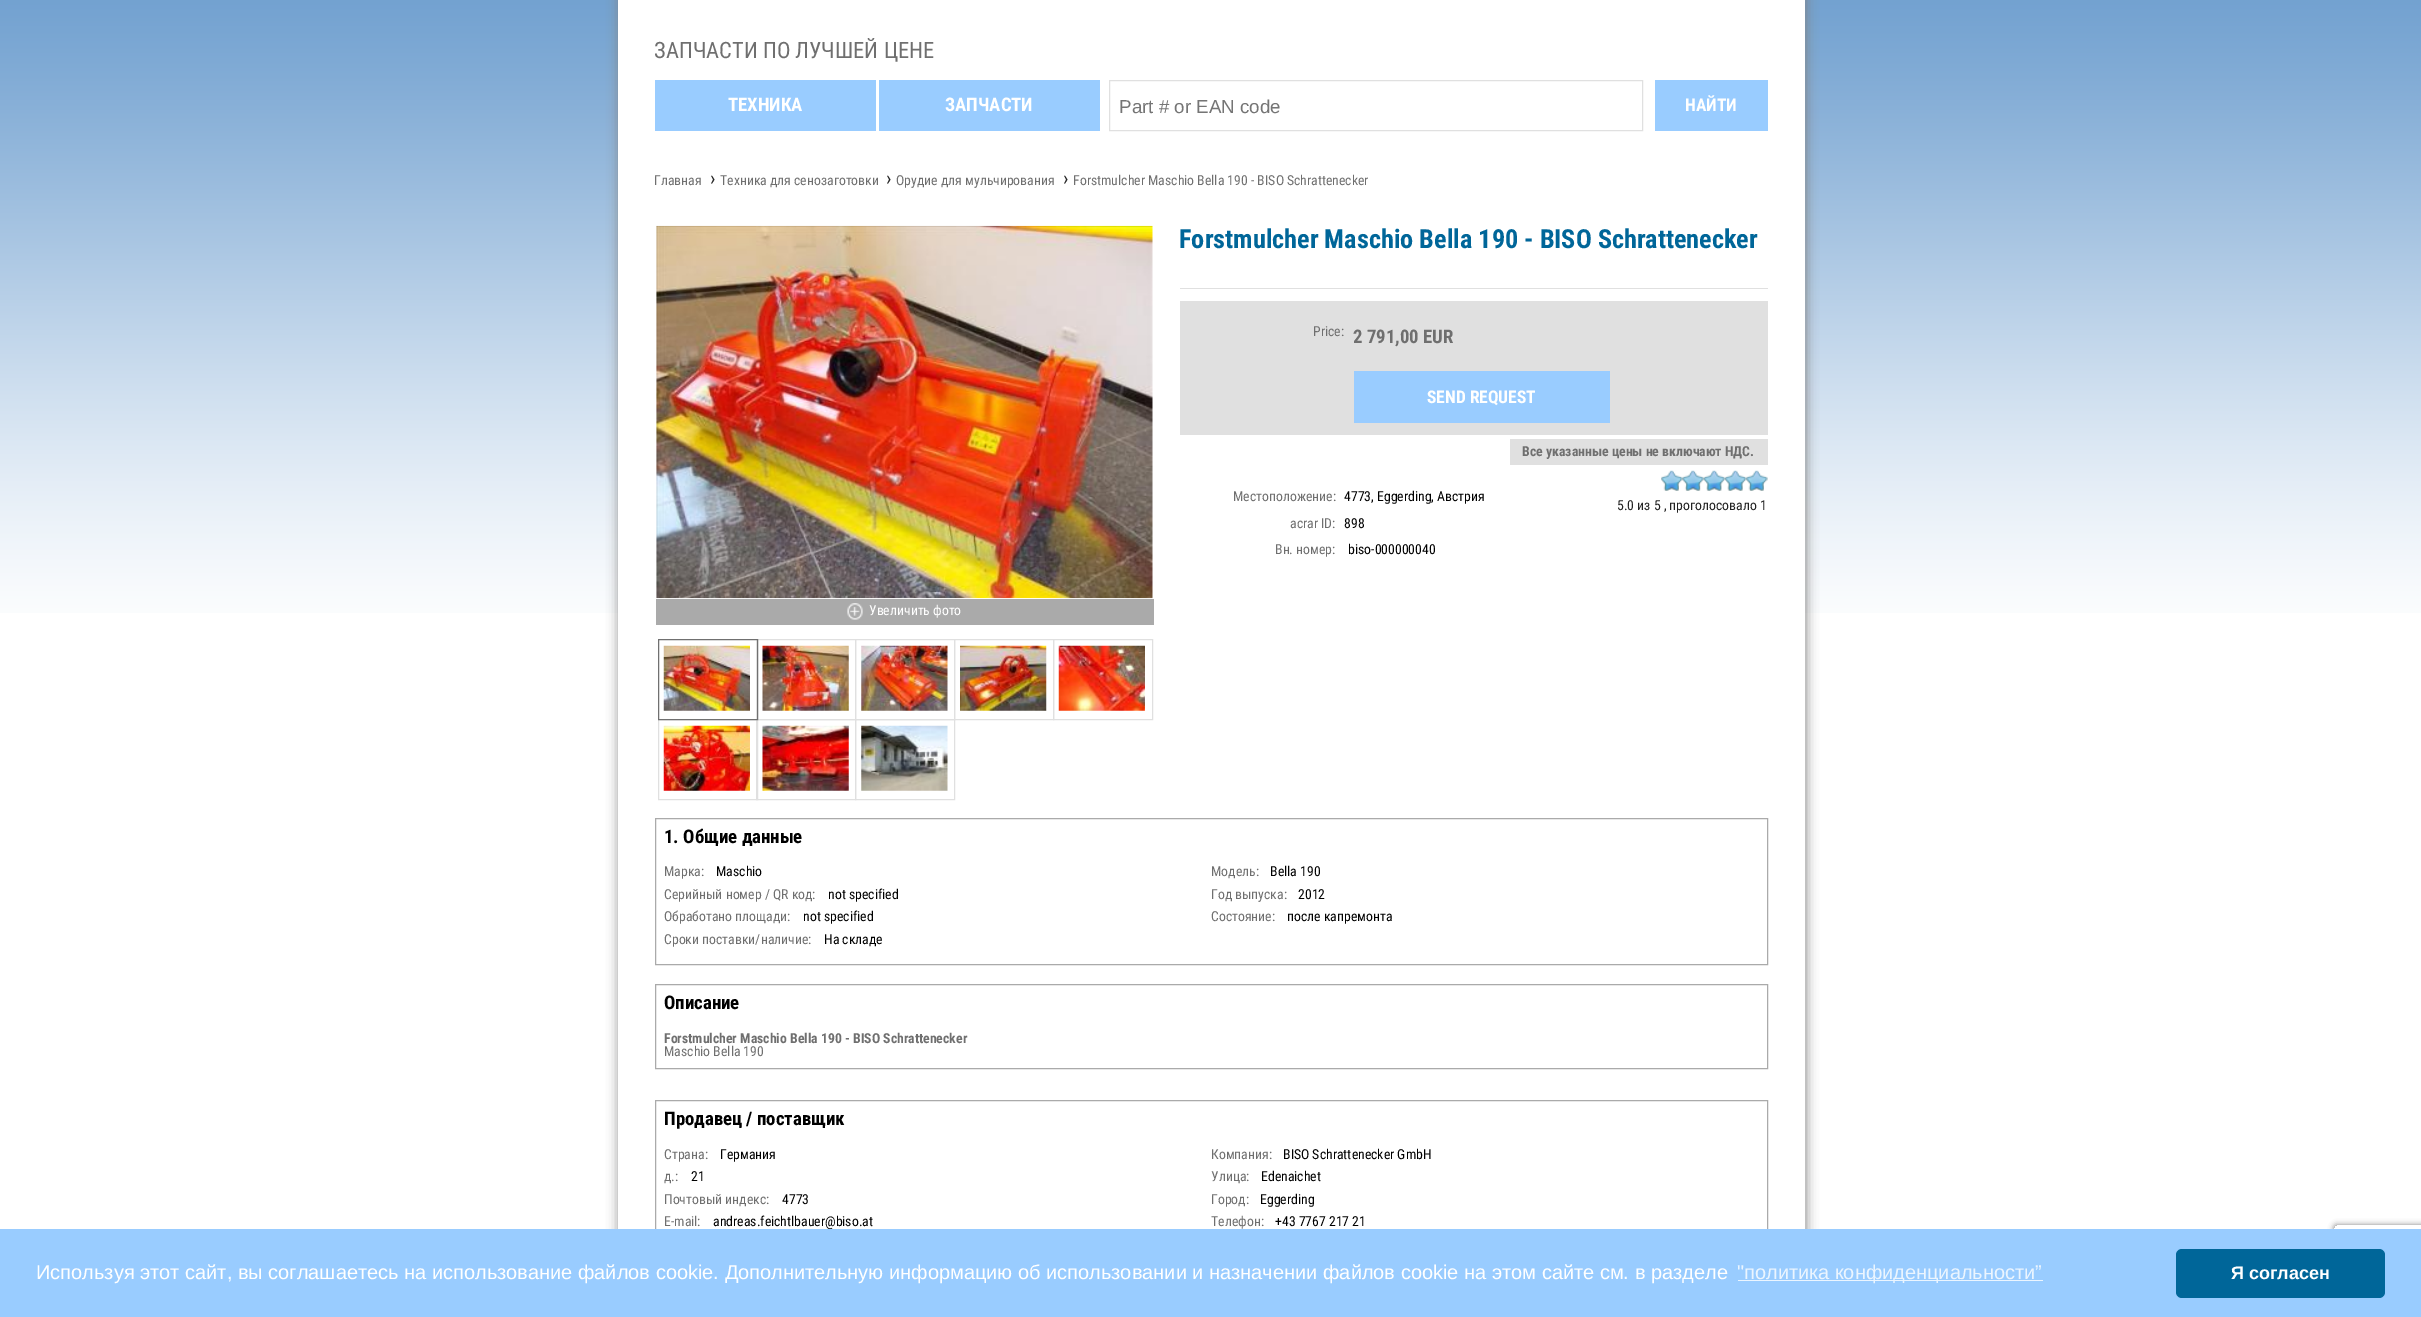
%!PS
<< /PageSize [2421 1317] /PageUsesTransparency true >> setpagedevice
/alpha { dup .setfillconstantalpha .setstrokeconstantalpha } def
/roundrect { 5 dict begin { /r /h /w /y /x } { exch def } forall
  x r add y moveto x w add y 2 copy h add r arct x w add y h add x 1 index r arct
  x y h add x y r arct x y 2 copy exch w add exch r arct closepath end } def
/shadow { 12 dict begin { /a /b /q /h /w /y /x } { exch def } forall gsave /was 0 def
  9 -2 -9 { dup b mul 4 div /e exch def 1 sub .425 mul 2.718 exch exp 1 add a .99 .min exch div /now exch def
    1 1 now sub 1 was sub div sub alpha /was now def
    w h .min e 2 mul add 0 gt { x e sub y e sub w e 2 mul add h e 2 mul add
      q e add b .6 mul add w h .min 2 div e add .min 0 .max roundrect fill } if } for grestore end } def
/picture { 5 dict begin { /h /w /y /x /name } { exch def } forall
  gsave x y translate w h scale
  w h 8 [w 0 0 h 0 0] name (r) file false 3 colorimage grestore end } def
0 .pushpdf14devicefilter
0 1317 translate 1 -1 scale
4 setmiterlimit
1 setgray
0 0 2421 1317 rectfill
(img1.rgb) 0 0 2421 613 picture
0.502 setgray
619 -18 1187 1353 0 6 1 shadow
1 setgray
618 0 1187 1229 rectfill
/RobotoCondensed-Regular [22.5 0 0 -22.5 0 0] selectfont
0.435 setgray
654 58 moveto (ЗАПЧАСТИ ПО ЛУЧШЕЙ ЦЕНЕ) show
0.6 0.8 1 setrgbcolor
655 80 221 51 rectfill
/RobotoCondensed-Bold [18.75 0 0 -18.75 0 0] selectfont
1 setgray
728 111 moveto (ТЕХНИКА) show
0.6 0.8 1 setrgbcolor
879 80 221 51 rectfill
1 setgray
945 111 moveto (ЗАПЧАСТИ) show
0.878 setgray
1109.5 80.5 533 50 rectstroke
/LiberationSans-Regular [18.75 0 0 -18.75 0 0] selectfont
0.459 setgray
1119 113 moveto (Part # or EAN code) show
0.6 0.8 1 setrgbcolor
1655 80 113 51 rectfill
/RobotoCondensed-Bold [17.5 0 0 -17.5 0 0] selectfont
1 setgray
1685 111 moveto (НАЙТИ) show
/RobotoCondensed-Regular [13.75 0 0 -13.75 0 0] selectfont
0.435 setgray
654 185 moveto (Главная) show
/RobotoCondensed-Regular [20 0 0 -20 0 0] selectfont
0.133 setgray
710 185 moveto (›) show
/RobotoCondensed-Regular [13.75 0 0 -13.75 0 0] selectfont
0.435 setgray
720 185 moveto (Техника для сенозаготовки) show
/RobotoCondensed-Regular [20 0 0 -20 0 0] selectfont
0.133 setgray
886 185 moveto (›) show
/RobotoCondensed-Regular [13.75 0 0 -13.75 0 0] selectfont
0.435 setgray
896 185 moveto (Орудие для мульчирования) show
/RobotoCondensed-Regular [20 0 0 -20 0 0] selectfont
0.133 setgray
1063 185 moveto (›) show
/RobotoCondensed-Regular [13.75 0 0 -13.75 0 0] selectfont
0.435 setgray
1073 185 moveto (Forstmulcher Maschio Bella 190 - BISO Schrattenecker) show
/RobotoCondensed-Bold [26.25 0 0 -26.25 0 0] selectfont
0 0.4 0.6 setrgbcolor
1179 248 moveto (Forstmulcher Maschio Bella 190 - BISO Schrattenecker) show
0.878 setgray
1180 288 588 1 rectfill
1180 301 588 134 rectfill
/RobotoCondensed-Regular [13.75 0 0 -13.75 0 0] selectfont
0.435 setgray
1313 336 moveto (Price:) show
/RobotoCondensed-Bold [18.75 0 0 -18.75 0 0] selectfont
1353 343 moveto (2 791,00 EUR) show
0.6 0.8 1 setrgbcolor
1354 371 256 52 rectfill
/RobotoCondensed-Bold [17.5 0 0 -17.5 0 0] selectfont
1 setgray
1427 403 moveto (SEND REQUEST) show
0.878 setgray
1510 439 258 26 rectfill
/RobotoCondensed-Bold [13.75 0 0 -13.75 0 0] selectfont
0.435 setgray
1522 456 moveto (Все указанные цены не включают НДС.) show
/RobotoCondensed-Regular [13.75 0 0 -13.75 0 0] selectfont
1233 501 moveto (Местоположение:) show
0 setgray
1344 501 moveto (4773, Eggerding, Австрия) show
(img2.rgb) 1661 470 107 21 picture
(img3.rgb) 1661 470 107 21 picture
0.133 setgray
1617 510 moveto (5.0 из 5 , проголосовало 1) show
0.435 setgray
1290 528 moveto (acrar ID:) show
0 setgray
1344 528 moveto (898) show
0.435 setgray
1275 554 moveto (Вн. номер:) show
0 setgray
1348 554 moveto (biso-000000040) show
(img4.rgb) 656 225 497 374 picture
0.667 setgray
656 599 498 26 rectfill
(img5.rgb) 847 603 16 17 picture
1 setgray
869 615 moveto (Увеличить фото) show
0.878 setgray
756.5 639.5 99 80 rectstroke
658.5 719.5 99 80 rectstroke
855.5 639.5 99 80 rectstroke
756.5 719.5 99 80 rectstroke
0.439 setgray
658.5 639.5 99 80 rectstroke
(img6.rgb) 663 645 87 66 picture
(img7.rgb) 762 645 87 66 picture
(img8.rgb) 861 645 87 66 picture
0.878 setgray
954.5 639.5 99 80 rectstroke
(img9.rgb) 960 645 87 66 picture
1053.5 639.5 99 80 rectstroke
(img10.rgb) 1058 645 87 66 picture
(img11.rgb) 663 725 87 66 picture
(img12.rgb) 762 725 87 66 picture
855.5 719.5 99 80 rectstroke
(img13.rgb) 861 725 87 66 picture
0.667 setgray
655.5 818.5 1112 146 rectstroke
/RobotoCondensed-Bold [18.75 0 0 -18.75 0 0] selectfont
0 setgray
664 843 moveto (1. Общие данные) show
/RobotoCondensed-Regular [13.75 0 0 -13.75 0 0] selectfont
0.435 setgray
664 876 moveto (Марка:) show
0 setgray
716 876 moveto (Maschio) show
0.435 setgray
1211 876 moveto (Модель:) show
0 setgray
1270 876 moveto (Bella 190) show
0.435 setgray
664 899 moveto (Серийный номер / QR код:) show
0 setgray
828 899 moveto (not specified) show
0.435 setgray
1211 899 moveto (Год выпуска:) show
0 setgray
1298 899 moveto (2012) show
0.435 setgray
664 921 moveto (Обработано площади:) show
0 setgray
803 921 moveto (not specified) show
0.435 setgray
1211 921 moveto (Состояние:) show
0 setgray
1287 921 moveto (после капремонта) show
0.435 setgray
664 944 moveto (Сроки поставки/наличие:) show
0 setgray
824 944 moveto (На складе) show
0.667 setgray
655.5 984.5 1112 84 rectstroke
/RobotoCondensed-Bold [18.75 0 0 -18.75 0 0] selectfont
0 setgray
664 1009 moveto (Описание) show
/RobotoCondensed-Bold [13.75 0 0 -13.75 0 0] selectfont
0.435 setgray
664 1043 moveto (Forstmulcher Maschio Bella 190 - BISO Schrattenecker) show
/RobotoCondensed-Regular [13.75 0 0 -13.75 0 0] selectfont
664 1056 moveto (Maschio Bella 190) show
0.667 setgray
655.5 1100.5 1112 147 rectstroke
/RobotoCondensed-Bold [18.75 0 0 -18.75 0 0] selectfont
0 setgray
664 1125 moveto (Продавец / поставщик) show
/RobotoCondensed-Regular [13.75 0 0 -13.75 0 0] selectfont
0.435 setgray
664 1159 moveto (Страна:) show
0 setgray
720 1159 moveto (Германия) show
0.435 setgray
1211 1159 moveto (Компания:) show
0 setgray
1283 1159 moveto (BISO Schrattenecker GmbH) show
0.435 setgray
664 1181 moveto (д.:) show
0 setgray
691 1181 moveto (21) show
0.435 setgray
1211 1181 moveto (Улица:) show
0 setgray
1261 1181 moveto (Edenaichet) show
0.435 setgray
664 1204 moveto (Почтовый индекс:) show
0 setgray
782 1204 moveto (4773) show
0.435 setgray
1211 1204 moveto (Город:) show
0 setgray
1260 1204 moveto (Eggerding) show
0.435 setgray
664 1226 moveto (E-mail:) show
0 setgray
713 1226 moveto (andreas.feichtlbauer@biso.at) show
0.435 setgray
1211 1226 moveto (Телефон:) show
0 setgray
1275 1226 moveto (+43 7767 217 21) show
gsave
newpath 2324 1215 moveto 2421 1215 lineto 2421 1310 lineto 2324 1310 lineto closepath 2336.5 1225 moveto 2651.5 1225 lineto 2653 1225 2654 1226 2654 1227.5 curveto 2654 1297.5 lineto 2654 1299 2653 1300 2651.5 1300 curveto 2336.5 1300 lineto 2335 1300 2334 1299 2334 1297.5 curveto 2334 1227.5 lineto 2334 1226 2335 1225 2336.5 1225 curveto closepath eoclip newpath
0.502 setgray
2334 1225 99 75 2.5 3 1 shadow
grestore
0.6 0.8 1 setrgbcolor
0 1229 2421 88 rectfill
/LiberationSans-Regular [20 0 0 -20 0 0] selectfont
1 setgray
36 1279 moveto (Используя этот сайт, вы соглашаетесь на использование файлов cookie. Дополнительную информацию об использовании и назначении файлов cookie на этом сайте см. в разделе) show
0.922 0.961 1 setrgbcolor
1738 1280 305 1 rectfill
1737 1279 moveto ("политика конфиденциальности”) show
0 0.4 0.6 setrgbcolor
2176 1249 209 49 6 roundrect fill
/LiberationSans-Bold [18 0 0 -18 0 0] selectfont
1 setgray
2231 1279 moveto (Я согласен) show
.poppdf14devicefilter showpage
